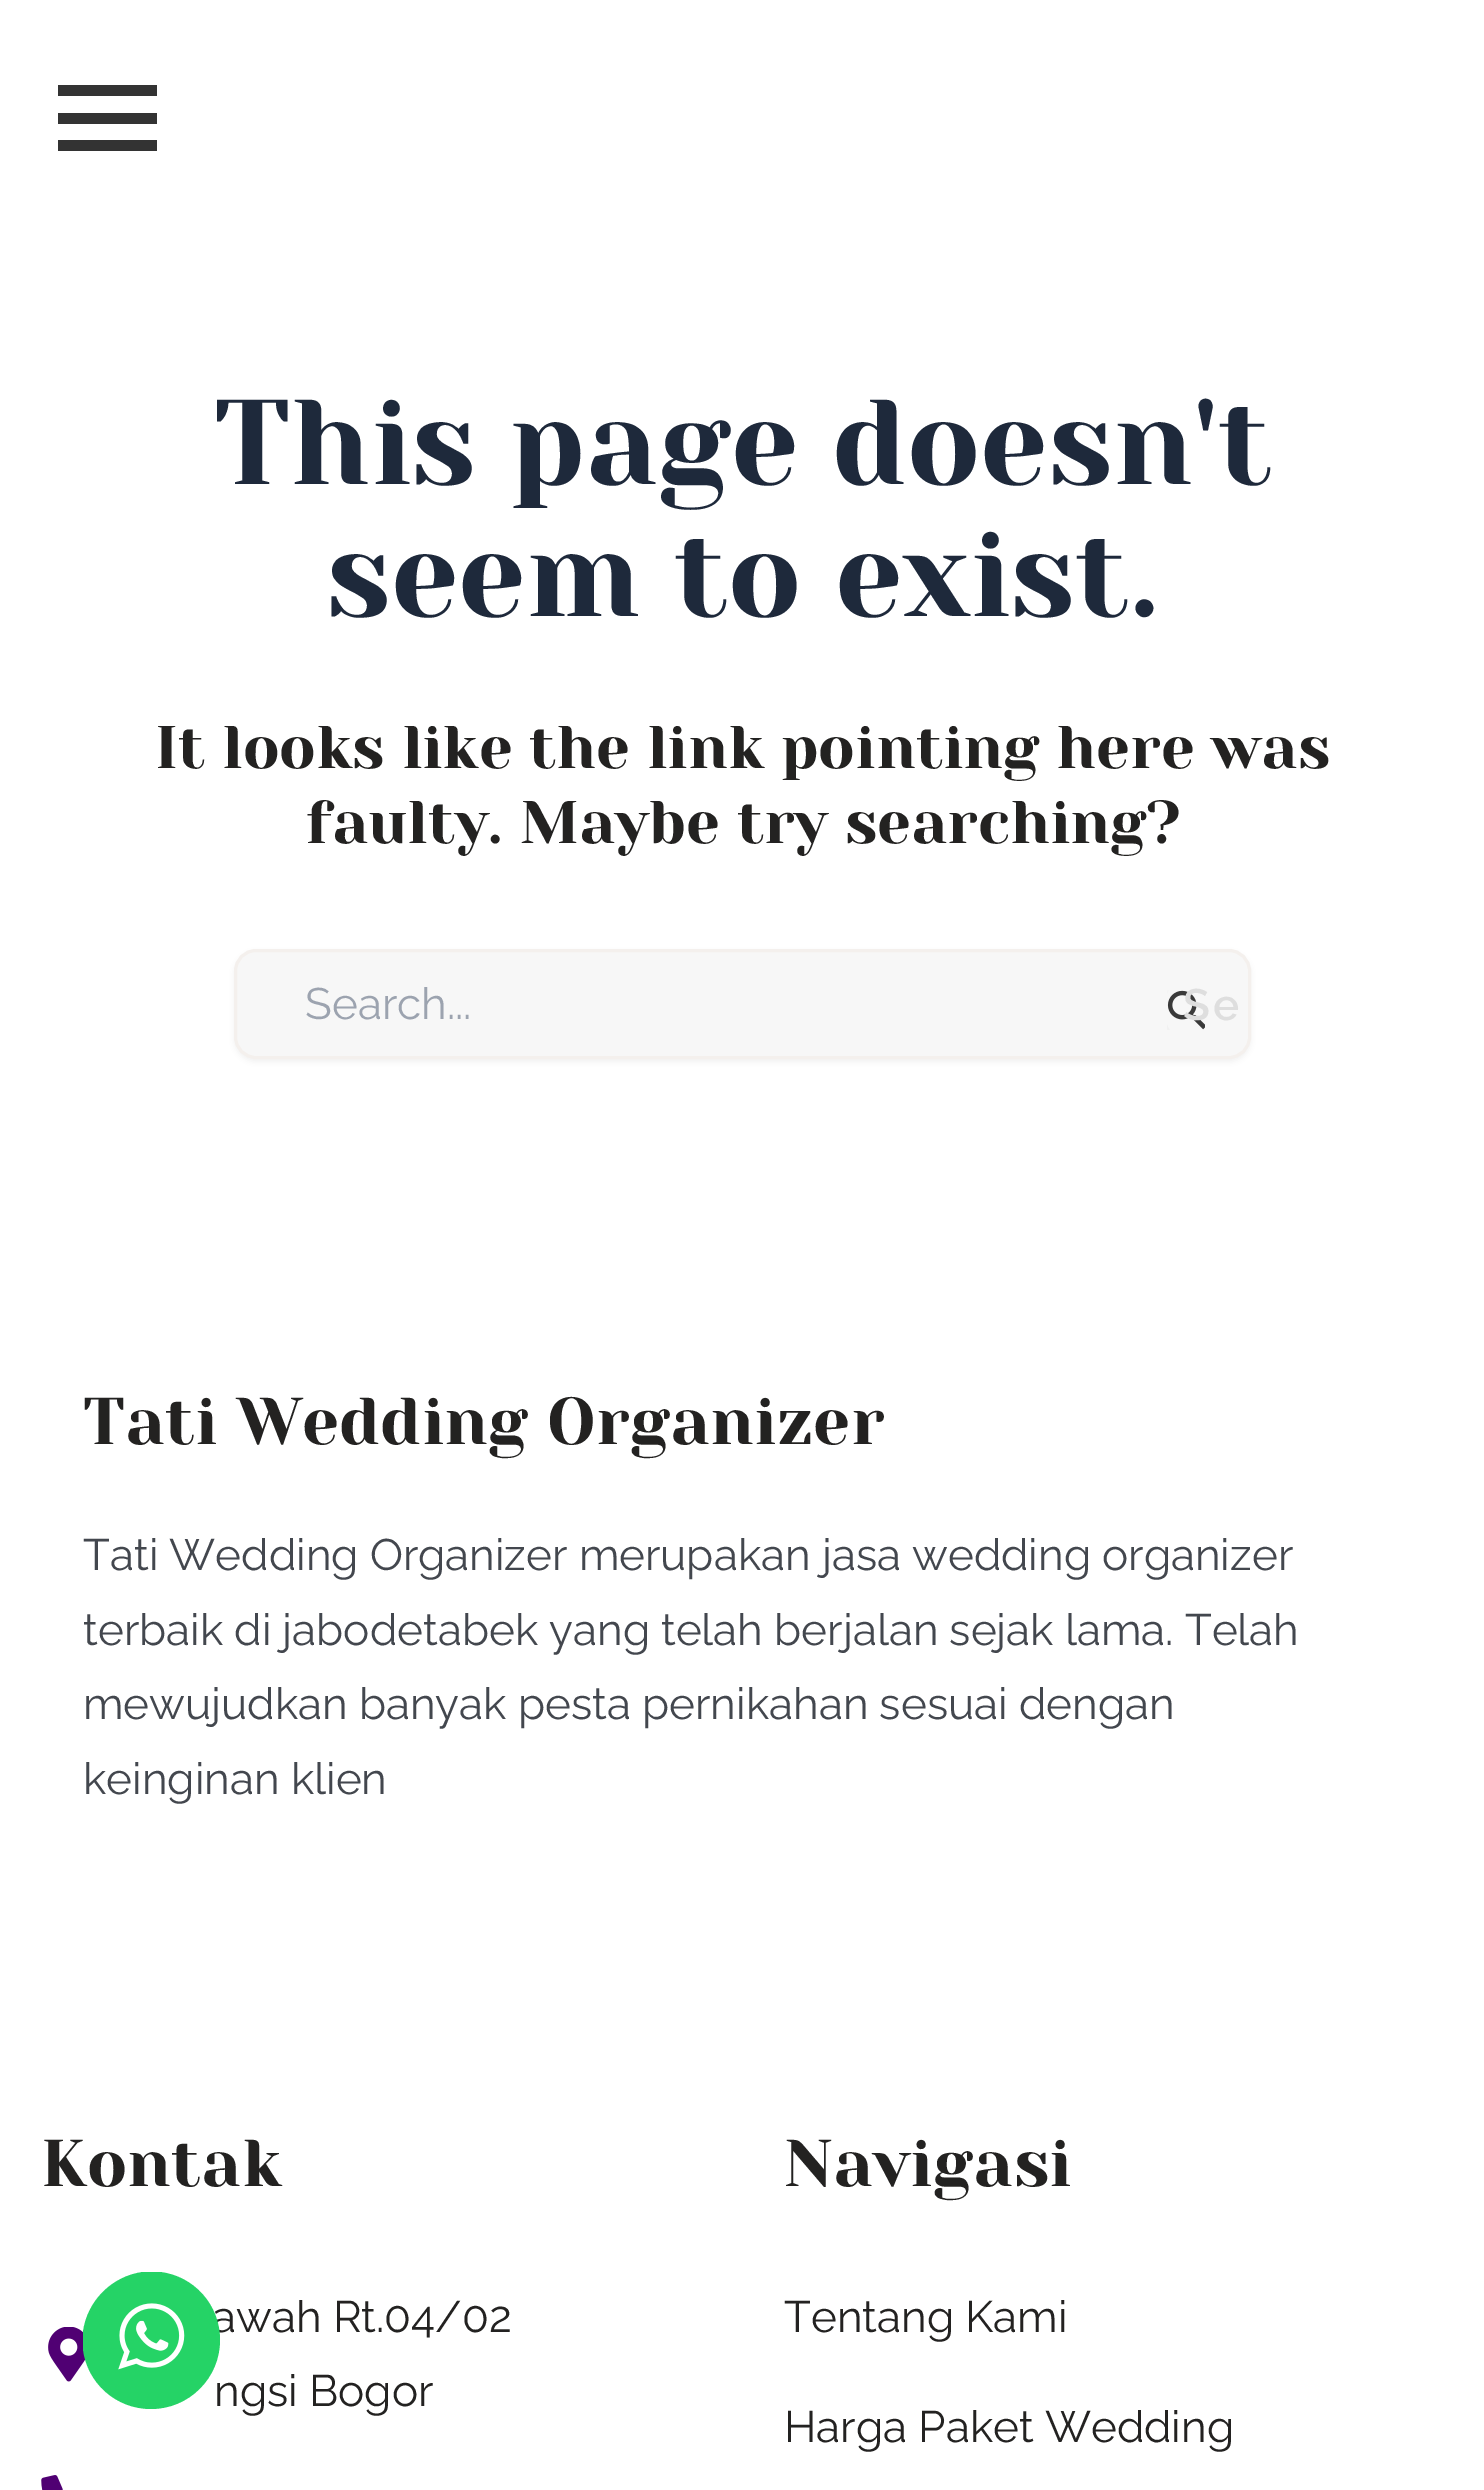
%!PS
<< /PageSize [1484 2490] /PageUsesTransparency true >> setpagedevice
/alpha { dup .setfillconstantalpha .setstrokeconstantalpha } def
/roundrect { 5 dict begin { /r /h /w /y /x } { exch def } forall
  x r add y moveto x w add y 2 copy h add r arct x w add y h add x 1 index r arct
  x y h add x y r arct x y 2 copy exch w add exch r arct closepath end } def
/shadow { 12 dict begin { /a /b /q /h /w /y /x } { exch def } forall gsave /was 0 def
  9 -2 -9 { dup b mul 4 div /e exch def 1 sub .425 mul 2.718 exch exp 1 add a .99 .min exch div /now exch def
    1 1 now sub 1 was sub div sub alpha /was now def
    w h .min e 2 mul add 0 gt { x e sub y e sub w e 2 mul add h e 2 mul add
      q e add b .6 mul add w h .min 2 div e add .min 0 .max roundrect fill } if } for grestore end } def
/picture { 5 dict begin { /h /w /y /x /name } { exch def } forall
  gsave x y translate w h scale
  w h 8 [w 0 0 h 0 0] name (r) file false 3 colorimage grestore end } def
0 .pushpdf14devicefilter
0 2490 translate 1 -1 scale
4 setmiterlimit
1 setgray
0 0 1484 2490 rectfill
0.2 setgray
58 85 99 11 rectfill
58 113 99 11 rectfill
58 140 99 11 rectfill
/YesevaOne-Regular [120.4 0 0 -120.4 0 0] selectfont
0.118 0.161 0.231 setrgbcolor
214 484 moveto (This page doesn't) show
326 616 moveto (seem to exist.) show
/YesevaOne-Regular [60.2 0 0 -60.2 0 0] selectfont
0.137 0.133 0.129 setrgbcolor
155 768 moveto (It looks like the link pointing here was) show
306 843 moveto (faulty. Maybe try searching?) show
0 setgray
234 952 1017 110 22 3 0.05 shadow
0.969 setgray
235.5 950.5 1014 107 20.5 roundrect gsave fill grestore
0.957 0.941 0.929 setrgbcolor
3 setlinewidth
stroke
/Raleway-Regular [44 0 0 -44 0 0] selectfont
0.612 0.639 0.686 setrgbcolor
305 1019 moveto (Search...) show
(img1.rgb) 1167 990 38 40 picture
/Raleway-SemiBold [44 0 0 -44 0 0] selectfont
0.871 setgray
1183 1020 moveto 3 0 (Se) ashow
/YesevaOne-Regular [66 0 0 -66 0 0] selectfont
0.137 0.133 0.129 setrgbcolor
83 1444 moveto 0.25 0 (Tati Wedding Organizer) ashow
/Raleway-Regular [44 0 0 -44 0 0] selectfont
0.263 0.278 0.306 setrgbcolor
83 1570 moveto (Tati Wedding Organizer merupakan jasa wedding organizer) show
83 1645 moveto (terbaik di jabodetabek yang telah berjalan sejak lama. Telah) show
83 1719 moveto (mewujudkan banyak pesta pernikahan sesuai dengan) show
83 1794 moveto (keinginan klien) show
/YesevaOne-Regular [66 0 0 -66 0 0] selectfont
0.137 0.133 0.129 setrgbcolor
41 2186 moveto 0.25 0 (Kontak) ashow
(img2.rgb) 48 2327 38 55 picture
/Raleway-Regular [44 0 0 -44 0 0] selectfont
212 2332 moveto (awah Rt.04/02) show
214 2406 moveto (ngsi Bogor) show
(img3.rgb) 41 2475 22 15 picture
/YesevaOne-Regular [66 0 0 -66 0 0] selectfont
784 2186 moveto 0.25 0 (Navigasi) ashow
/Raleway-Regular [44 0 0 -44 0 0] selectfont
784 2332 moveto (Tentang Kami) show
784 2442 moveto (Harga Paket Wedding) show
0.145 0.827 0.4 setrgbcolor
newpath 83 2332 moveto 87 2301 112 2276 143 2272 curveto 160 2272 lineto 194 2276 220 2305 220 2340 curveto 220 2378 189 2409 151 2409 curveto 116 2409 87 2383 83 2349 curveto closepath fill
(img4.rgb) 118 2303 67 67 picture
.poppdf14devicefilter showpage
